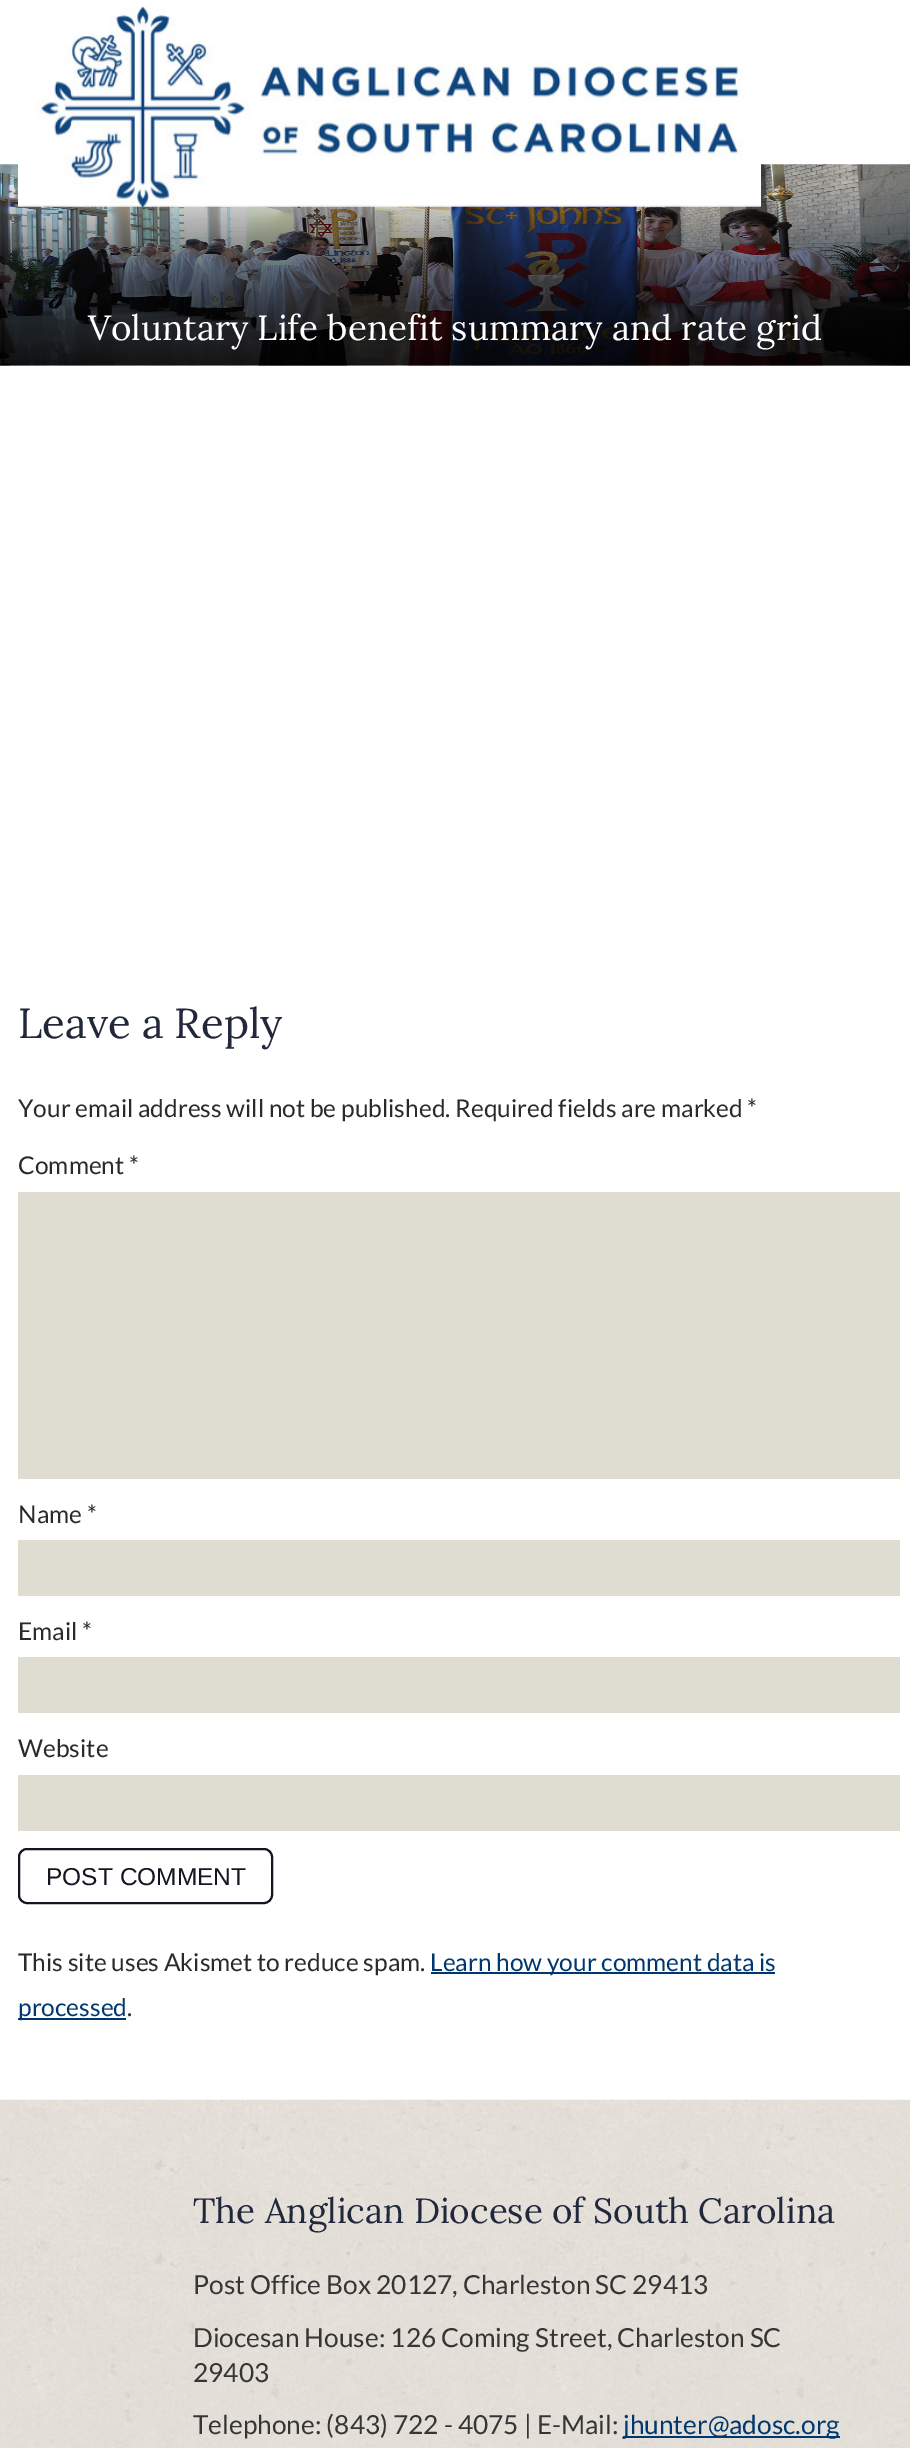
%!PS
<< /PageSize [910 2448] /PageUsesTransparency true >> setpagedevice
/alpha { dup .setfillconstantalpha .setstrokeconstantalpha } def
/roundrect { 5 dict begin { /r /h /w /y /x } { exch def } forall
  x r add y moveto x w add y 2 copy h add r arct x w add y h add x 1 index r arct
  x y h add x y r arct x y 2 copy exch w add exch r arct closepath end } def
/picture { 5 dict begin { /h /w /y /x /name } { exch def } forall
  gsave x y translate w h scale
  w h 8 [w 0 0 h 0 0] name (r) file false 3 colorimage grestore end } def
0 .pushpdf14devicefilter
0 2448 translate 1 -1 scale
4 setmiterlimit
1 setgray
0 0 910 2448 rectfill
(img2.rgb) 0 164 910 202 picture
(img3.rgb) 0 165 910 201 picture
(img1.rgb) 18 7 743 200 picture
/Lora-Regular [35 0 0 -35 0 0] selectfont
88 340 moveto (Voluntary Life benefit summary and rate grid) show
/Lora-Regular [42 0 0 -42 0 0] selectfont
0.133 0.157 0.235 setrgbcolor
18 1038 moveto (Leave a Reply) show
/Lato-Regular [24.5 0 0 -24.5 0 0] selectfont
0.165 setgray
18 1117 moveto (Your email address will not be published. Required fields are marked *) show
18 1174 moveto (Comment *) show
0.875 0.867 0.824 setrgbcolor
18 1192 882 287 rectfill
0.165 setgray
18 1523 moveto (Name *) show
0.875 0.867 0.824 setrgbcolor
18 1540 882 56 rectfill
0.165 setgray
18 1640 moveto (Email *) show
0.875 0.867 0.824 setrgbcolor
18 1657 882 56 rectfill
0.165 setgray
18 1757 moveto (Website) show
0.875 0.867 0.824 setrgbcolor
18 1775 882 56 rectfill
0.075 0.086 0.129 setrgbcolor
2 setlinewidth
19 1849 253 54 8 roundrect stroke
/LiberationSans-Regular [24.5 0 0 -24.5 0 0] selectfont
46 1885 moveto (POST COMMENT) show
/Lato-Regular [24.5 0 0 -24.5 0 0] selectfont
0.165 setgray
18 1971 moveto (This site uses Akismet to reduce spam.) show
0 0.216 0.435 setrgbcolor
431 1972 344 2 rectfill
430 1971 moveto (Learn how your comment data is) show
18 2018 108 2 rectfill
18 2016 moveto (processed) show
0.165 setgray
127 2016 moveto (.) show
(img4.rgb) 0 2099 910 349 picture
/Lora-Regular [35 0 0 -35 0 0] selectfont
0.133 0.157 0.235 setrgbcolor
193 2223 moveto (The Anglican Diocese of South Carolina) show
/Lato-Regular [26.25 0 0 -26.25 0 0] selectfont
0.208 setgray
193 2294 moveto (Post Office Box 20127, Charleston SC 29413) show
193 2347 moveto (Diocesan House: 126 Coming Street, Charleston SC) show
193 2382 moveto (29403) show
193 2434 moveto (Telephone: \(843\) 722 - 4075 | E-Mail:) show
0 0.216 0.435 setrgbcolor
623 2436 217 2 rectfill
623 2434 moveto (jhunter@adosc.org) show
0.04 alpha
1 setgray
819 2420 21 11 rectfill
1 alpha
(img5.rgb) 850 2366 12 7 picture
.poppdf14devicefilter showpage
